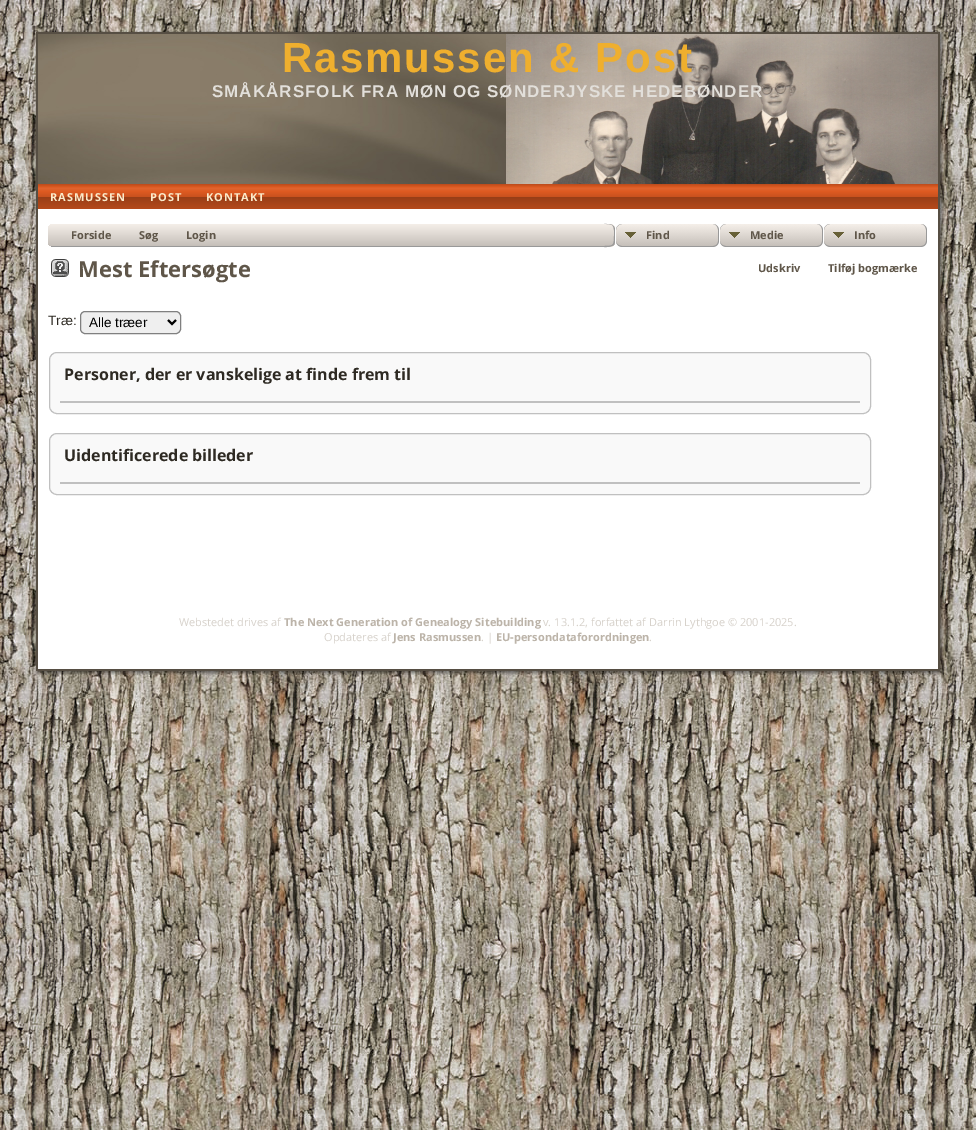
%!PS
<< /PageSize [976 1130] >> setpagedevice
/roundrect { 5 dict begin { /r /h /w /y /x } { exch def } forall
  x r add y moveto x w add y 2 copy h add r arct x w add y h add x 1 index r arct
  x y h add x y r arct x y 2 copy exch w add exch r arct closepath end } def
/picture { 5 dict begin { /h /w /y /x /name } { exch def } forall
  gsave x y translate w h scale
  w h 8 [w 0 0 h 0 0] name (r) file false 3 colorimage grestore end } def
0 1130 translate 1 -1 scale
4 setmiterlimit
1 setgray
0 0 976 1130 rectfill
(img1.rgb) 0 0 976 1130 picture
(img2.rgb) 35 31 15 15 picture
(img3.rgb) 50 31 876 3 picture
(img4.rgb) 926 31 18 15 picture
(img5.rgb) 35 46 15 611 picture
(img6.rgb) 38 34 468 150 picture
(img12.rgb) 926 46 18 611 picture
(img7.rgb) 506 34 432 150 picture
/LiberationSans-Bold [42 0 0 -42 0 0] selectfont
0.937 0.686 0.18 setrgbcolor
282 72 moveto 2 0 (Rasmussen & Post) ashow
/LiberationSans-Bold [17 0 0 -17 0 0] selectfont
0.886 0.875 0.855 setrgbcolor
212 97 moveto 1 0 (SMÅKÅRSFOLK FRA MØN OG SØNDERJYSKE HEDEBØNDER) ashow
(img8.rgb) 38 184 900 25 picture
/OpenSans-Bold [11 0 0 -11 0 0] selectfont
0.984 0.922 0.796 setrgbcolor
50 201 moveto 1 0 (RASMUSSEN) ashow
150 201 moveto 1 0 (POST) ashow
206 201 moveto 1 0 (KONTAKT) ashow
1 setgray
50 209 876 448 rectfill
0.863 0.843 0.82 setrgbcolor
48 224 880 23 6 roundrect fill
gsave
48 224 880 23 6 roundrect clip newpath
gsave newpath 54 224 moveto 922 224 lineto 925.5 224 928 226.5 928 230 curveto 928 246 lineto 48 246 lineto 48 230 lineto 48 226.5 50.5 224 54 224 curveto closepath clip newpath
<< /ShadingType 2 /ColorSpace /DeviceRGB /Coords [488 224 488 246] /Extend [true true] /Function << /FunctionType 2 /Domain [0 1] /C0 [0.961 0.937 0.914] /C1 [0.773 0.749 0.725] /N 1 >> >> shfill grestore
grestore
0.6 setgray
51 246 553 1 rectfill
0.373 0.337 0.286 setrgbcolor
71 239 moveto (Forside) show
139 239 moveto (Søg) show
186 239 moveto (Login) show
1 setgray
609 224 319 23 rectfill
gsave
newpath 604 224 moveto 609 224 lineto 612.5 224 615 226.5 615 230 curveto 615 241 lineto 615 244.5 612.5 247 609 247 curveto 604 247 lineto closepath clip newpath
gsave newpath 604 224 moveto 615 224 lineto 615 246 lineto 604 246 lineto closepath clip newpath
<< /ShadingType 2 /ColorSpace /DeviceRGB /Coords [609 224 609 246] /Extend [true true] /Function << /FunctionType 2 /Domain [0 1] /C0 [0.961 0.937 0.914] /C1 [0.773 0.749 0.725] /N 1 >> >> shfill grestore
gsave newpath 604 246 moveto 615 246 lineto 615 247 lineto 604 247 lineto closepath clip newpath
<< /ShadingType 2 /ColorSpace /DeviceRGB /Coords [609 246 609 268] /Extend [true true] /Function << /FunctionType 2 /Domain [0 1] /C0 [0.961 0.937 0.914] /C1 [0.773 0.749 0.725] /N 1 >> >> shfill grestore
grestore
0.6 setgray
newpath 604 224 moveto 608 224 614 223.5 615 229 curveto 615 242 lineto 614 247.5 608 247 604 247 curveto closepath 604 224 moveto 610 224 lineto 615 225.5 614 232 614 235.5 curveto 614 245.5 613.5 246 604 246 curveto closepath eofill
(img9.rgb) 616 224 102 22 picture
newpath 622 224 moveto 713 224 lineto 716 224 719 227 719 230 curveto 719 241 lineto 719 244 716 247 713 247 curveto 622 247 lineto 619 247 616 244 616 241 curveto 616 230 lineto 616 227 619 224 622 224 curveto closepath 622 224 moveto 713 224 lineto 716 224 718 227 718 230 curveto 718 241 lineto 718 244 716 246 713 246 curveto 622 246 lineto 619 246 616 244 616 241 curveto 616 230 lineto 616 227 619 224 622 224 curveto closepath eofill
0.373 0.337 0.286 setrgbcolor
646 239 moveto (Find) show
(img10.rgb) 720 224 102 22 picture
0.6 setgray
newpath 726 224 moveto 817 224 lineto 820 224 823 227 823 230 curveto 823 241 lineto 823 244 820 247 817 247 curveto 726 247 lineto 723 247 720 244 720 241 curveto 720 230 lineto 720 227 723 224 726 224 curveto closepath 726 224 moveto 817 224 lineto 820 224 822 227 822 230 curveto 822 241 lineto 822 244 820 246 817 246 curveto 726 246 lineto 723 246 720 244 720 241 curveto 720 230 lineto 720 227 723 224 726 224 curveto closepath eofill
0.373 0.337 0.286 setrgbcolor
750 239 moveto (Medie) show
(img9.rgb) 824 224 102 22 picture
0.6 setgray
newpath 830 224 moveto 921 224 lineto 924 224 927 227 927 230 curveto 927 241 lineto 927 244 924 247 921 247 curveto 830 247 lineto 827 247 824 244 824 241 curveto 824 230 lineto 824 227 827 224 830 224 curveto closepath 830 224 moveto 921 224 lineto 924 224 926 227 926 230 curveto 926 241 lineto 926 244 924 246 921 246 curveto 830 246 lineto 827 246 824 244 824 241 curveto 824 230 lineto 824 227 827 224 830 224 curveto closepath eofill
0.373 0.337 0.286 setrgbcolor
854 239 moveto (Info) show
(img11.rgb) 51 259 18 18 picture
/OpenSans-Bold [22 0 0 -22 0 0] selectfont
78 277 moveto (Mest Eftersøgte) show
/OpenSans-Bold [11 0 0 -11 0 0] selectfont
758 272 moveto (Udskriv) show
828 272 moveto (Tilføj bogmærke) show
/LiberationSans-Regular [13.5 0 0 -13.5 0 0] selectfont
0.18 0.165 0.137 setrgbcolor
48 325 moveto (Træ:) show
0.937 setgray
80.5 311.5 100 22 4.5 roundrect gsave fill grestore
0.502 setgray
stroke
0 setgray
2 setlinewidth
newpath 168 320 moveto 172 324 lineto 176 320 lineto stroke
89 327 moveto (Alle træer) show
0.976 setgray
49.5 352.5 821 61 7.5 roundrect gsave fill grestore
0.753 setgray
1 setlinewidth
stroke
/OpenSans-Bold [16 0 0 -16 0 0] selectfont
0.18 0.165 0.137 setrgbcolor
64 380 moveto (Personer, der er vanskelige at finde frem til) show
0.753 setgray
60 401 800 2 rectfill
0.976 setgray
49.5 433.5 821 61 7.5 roundrect gsave fill grestore
0.753 setgray
stroke
0.18 0.165 0.137 setrgbcolor
64 461 moveto (Uidentificerede billeder) show
0.753 setgray
60 482 800 2 rectfill
/OpenSans-Regular [11 0 0 -11 0 0] selectfont
0.843 0.824 0.796 setrgbcolor
179 626 moveto (Webstedet drives af) show
/OpenSans-Bold [11 0 0 -11 0 0] selectfont
0.737 0.706 0.663 setrgbcolor
284 626 moveto (The Next Generation of Genealogy Sitebuilding) show
/OpenSans-Regular [11 0 0 -11 0 0] selectfont
0.843 0.824 0.796 setrgbcolor
543 626 moveto (v. 13.1.2, forfattet af Darrin Lythgoe © 2001-2025.) show
324 641 moveto (Opdateres af) show
/OpenSans-Bold [11 0 0 -11 0 0] selectfont
0.737 0.706 0.663 setrgbcolor
393 641 moveto (Jens Rasmussen) show
/OpenSans-Regular [11 0 0 -11 0 0] selectfont
0.843 0.824 0.796 setrgbcolor
481 641 moveto (. |) show
/OpenSans-Bold [11 0 0 -11 0 0] selectfont
0.737 0.706 0.663 setrgbcolor
496 641 moveto (EU-persondataforordningen) show
/OpenSans-Regular [11 0 0 -11 0 0] selectfont
0.843 0.824 0.796 setrgbcolor
649 641 moveto (.) show
(img13.rgb) 35 657 15 18 picture
(img14.rgb) 50 657 876 18 picture
(img15.rgb) 926 657 18 18 picture
showpage
